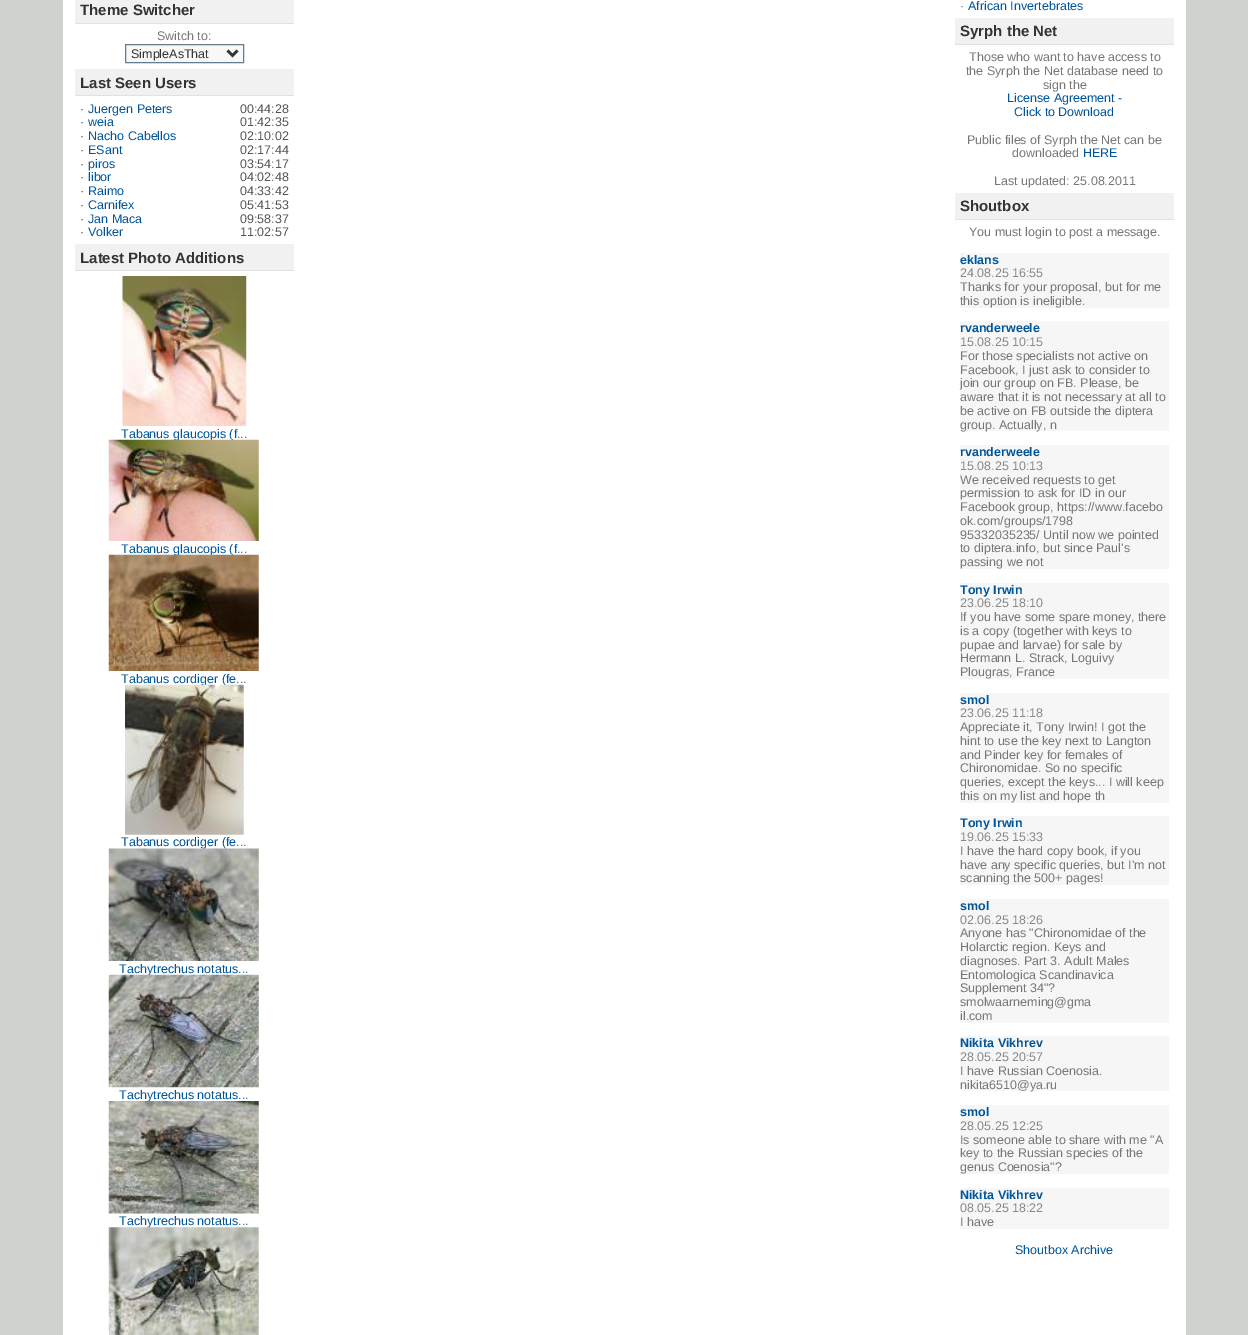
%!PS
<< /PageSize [1248 1335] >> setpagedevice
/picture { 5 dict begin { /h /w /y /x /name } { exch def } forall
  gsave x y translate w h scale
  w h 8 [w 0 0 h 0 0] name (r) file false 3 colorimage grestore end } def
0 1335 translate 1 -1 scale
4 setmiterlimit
0.812 0.827 0.808 setrgbcolor
0 0 1248 1335 rectfill
1 setgray
63 0 1123 1335 rectfill
0.945 setgray
75 0 219 23 rectfill
0.882 setgray
75 23 219 1 rectfill
/LiberationSans-Bold [15 0 0 -15 0 0] selectfont
0.2 setgray
80 15 moveto (Theme Switcher) show
/LiberationSans-Regular [12.5 0 0 -12.5 0 0] selectfont
0.467 setgray
157 40 moveto (Switch to:) show
0.973 setgray
newpath 125.5 44.5 moveto 243.5 44.5 lineto 243.5 62.5 lineto 125.5 62.5 lineto closepath gsave fill grestore
0.38 0.49 0.561 setrgbcolor
stroke
0.2 setgray
2.5 setlinewidth
newpath 227.5 50.5 moveto 232.5 55.5 lineto 237.5 50.5 lineto stroke
131 58 moveto (SimpleAsThat) show
0.945 setgray
75 69 219 26 rectfill
0.882 setgray
75 95 219 1 rectfill
/LiberationSans-Bold [15 0 0 -15 0 0] selectfont
0.2 setgray
80 88 moveto (Last Seen Users) show
/LiberationSans-Regular [12.5 0 0 -12.5 0 0] selectfont
0.333 setgray
80 113 moveto (·) show
0 0.333 0.6 setrgbcolor
88 113 moveto (Juergen Peters) show
0.333 setgray
240 113 moveto (00:44:28) show
80 126 moveto (·) show
0 0.333 0.6 setrgbcolor
88 126 moveto (weia) show
0.333 setgray
240 126 moveto (01:42:35) show
80 140 moveto (·) show
0 0.333 0.6 setrgbcolor
88 140 moveto (Nacho Cabellos) show
0.333 setgray
240 140 moveto (02:10:02) show
80 154 moveto (·) show
0 0.333 0.6 setrgbcolor
88 154 moveto (ESant) show
0.333 setgray
240 154 moveto (02:17:44) show
80 168 moveto (·) show
0 0.333 0.6 setrgbcolor
88 168 moveto (piros) show
0.333 setgray
240 168 moveto (03:54:17) show
80 181 moveto (·) show
0 0.333 0.6 setrgbcolor
88 181 moveto (libor) show
0.333 setgray
240 181 moveto (04:02:48) show
80 195 moveto (·) show
0 0.333 0.6 setrgbcolor
88 195 moveto (Raimo) show
0.333 setgray
240 195 moveto (04:33:42) show
80 209 moveto (·) show
0 0.333 0.6 setrgbcolor
88 209 moveto (Carnifex) show
0.333 setgray
240 209 moveto (05:41:53) show
80 223 moveto (·) show
0 0.333 0.6 setrgbcolor
88 223 moveto (Jan Maca) show
0.333 setgray
240 223 moveto (09:58:37) show
80 236 moveto (·) show
0 0.333 0.6 setrgbcolor
88 236 moveto (Volker) show
0.333 setgray
240 236 moveto (11:02:57) show
0.945 setgray
75 244 219 26 rectfill
0.882 setgray
75 270 219 1 rectfill
/LiberationSans-Bold [15 0 0 -15 0 0] selectfont
0.2 setgray
80 263 moveto (Latest Photo Additions) show
(img1.rgb) 122 276 125 150 picture
/LiberationSans-Regular [12.5 0 0 -12.5 0 0] selectfont
0 0.333 0.6 setrgbcolor
121 438 moveto (Tabanus glaucopis \(f...) show
(img2.rgb) 108 439 151 102 picture
121 553 moveto (Tabanus glaucopis \(f...) show
(img3.rgb) 108 554 151 117 picture
121 683 moveto (Tabanus cordiger \(fe...) show
(img4.rgb) 125 684 119 151 picture
121 846 moveto (Tabanus cordiger \(fe...) show
(img5.rgb) 108 848 151 113 picture
119 973 moveto (Tachytrechus notatus...) show
(img6.rgb) 108 974 151 114 picture
119 1099 moveto (Tachytrechus notatus...) show
(img7.rgb) 108 1101 151 113 picture
119 1225 moveto (Tachytrechus notatus...) show
(img8.rgb) 108 1227 151 108 picture
0.467 setgray
960 10 moveto (·) show
0 0.333 0.6 setrgbcolor
968 10 moveto (African Invertebrates) show
0.945 setgray
955 18 219 26 rectfill
0.882 setgray
955 44 219 1 rectfill
/LiberationSans-Bold [15 0 0 -15 0 0] selectfont
0.2 setgray
960 36 moveto (Syrph the Net) show
/LiberationSans-Regular [12.5 0 0 -12.5 0 0] selectfont
0.467 setgray
969 61 moveto (Those who want to have access to) show
966 75 moveto (the Syrph the Net database need to) show
1043 89 moveto (sign the) show
0 0.333 0.6 setrgbcolor
1007 102 moveto (License Agreement -) show
1014 116 moveto (Click to Download) show
0.467 setgray
967 144 moveto (Public files of Syrph the Net can be) show
1012 157 moveto (downloaded) show
0 0.333 0.6 setrgbcolor
1083 157 moveto (HERE) show
0.467 setgray
994 185 moveto (Last updated: 25.08.2011) show
0.945 setgray
955 193 219 26 rectfill
0.882 setgray
955 219 219 1 rectfill
/LiberationSans-Bold [15 0 0 -15 0 0] selectfont
0.2 setgray
960 211 moveto (Shoutbox) show
/LiberationSans-Regular [12.5 0 0 -12.5 0 0] selectfont
0.467 setgray
969 236 moveto (You must login to post a message.) show
0.965 setgray
960 253 209 55 rectfill
/LiberationSans-Bold [12.5 0 0 -12.5 0 0] selectfont
0 0.333 0.6 setrgbcolor
960 264 moveto (eklans) show
/LiberationSans-Regular [12.5 0 0 -12.5 0 0] selectfont
0.533 setgray
960 277 moveto (24.08.25 16:55) show
0.467 setgray
960 291 moveto (Thanks for your proposal, but for me) show
960 305 moveto (this option is ineligible.) show
0.965 setgray
960 321 209 110 rectfill
/LiberationSans-Bold [12.5 0 0 -12.5 0 0] selectfont
0 0.333 0.6 setrgbcolor
960 332 moveto (rvanderweele) show
/LiberationSans-Regular [12.5 0 0 -12.5 0 0] selectfont
0.533 setgray
960 346 moveto (15.08.25 10:15) show
0.467 setgray
960 360 moveto (For those specialists not active on) show
960 374 moveto (Facebook, I just ask to consider to) show
960 387 moveto (join our group on FB. Please, be) show
960 401 moveto (aware that it is not necessary at all to) show
960 415 moveto (be active on FB outside the diptera) show
960 429 moveto (group. Actually, n) show
0.965 setgray
960 445 209 124 rectfill
/LiberationSans-Bold [12.5 0 0 -12.5 0 0] selectfont
0 0.333 0.6 setrgbcolor
960 456 moveto (rvanderweele) show
/LiberationSans-Regular [12.5 0 0 -12.5 0 0] selectfont
0.533 setgray
960 470 moveto (15.08.25 10:13) show
0.467 setgray
960 484 moveto (We received requests to get) show
960 497 moveto (permission to ask for ID in our) show
960 511 moveto (Facebook group, https://www.facebo) show
960 525 moveto (ok.com/groups/1798) show
960 539 moveto (95332035235/ Until now we pointed) show
960 552 moveto (to diptera.info, but since Paul's) show
960 566 moveto (passing we not) show
0.965 setgray
960 583 209 96 rectfill
/LiberationSans-Bold [12.5 0 0 -12.5 0 0] selectfont
0 0.333 0.6 setrgbcolor
960 594 moveto (Tony Irwin) show
/LiberationSans-Regular [12.5 0 0 -12.5 0 0] selectfont
0.533 setgray
960 607 moveto (23.06.25 18:10) show
0.467 setgray
960 621 moveto (If you have some spare money, there) show
960 635 moveto (is a copy \(together with keys to) show
960 649 moveto (pupae and larvae\) for sale by) show
960 662 moveto (Hermann L. Strack, Loguivy) show
960 676 moveto (Plougras, France) show
0.965 setgray
960 693 209 110 rectfill
/LiberationSans-Bold [12.5 0 0 -12.5 0 0] selectfont
0 0.333 0.6 setrgbcolor
960 704 moveto (smol) show
/LiberationSans-Regular [12.5 0 0 -12.5 0 0] selectfont
0.533 setgray
960 717 moveto (23.06.25 11:18) show
0.467 setgray
960 731 moveto (Appreciate it, Tony Irwin! I got the) show
960 745 moveto (hint to use the key next to Langton) show
960 759 moveto (and Pinder key for females of) show
960 772 moveto (Chironomidae. So no specific) show
960 786 moveto (queries, except the keys... I will keep) show
960 800 moveto (this on my list and hope th) show
0.965 setgray
960 816 209 69 rectfill
/LiberationSans-Bold [12.5 0 0 -12.5 0 0] selectfont
0 0.333 0.6 setrgbcolor
960 827 moveto (Tony Irwin) show
/LiberationSans-Regular [12.5 0 0 -12.5 0 0] selectfont
0.533 setgray
960 841 moveto (19.06.25 15:33) show
0.467 setgray
960 855 moveto (I have the hard copy book, if you) show
960 869 moveto (have any specific queries, but I'm not) show
960 882 moveto (scanning the 500+ pages!) show
0.965 setgray
960 899 209 124 rectfill
/LiberationSans-Bold [12.5 0 0 -12.5 0 0] selectfont
0 0.333 0.6 setrgbcolor
960 910 moveto (smol) show
/LiberationSans-Regular [12.5 0 0 -12.5 0 0] selectfont
0.533 setgray
960 924 moveto (02.06.25 18:26) show
0.467 setgray
960 937 moveto (Anyone has "Chironomidae of the) show
960 951 moveto (Holarctic region. Keys and) show
960 965 moveto (diagnoses. Part 3. Adult Males) show
960 979 moveto (Entomologica Scandinavica) show
960 992 moveto (Supplement 34"?) show
960 1006 moveto (smolwaarneming@gma) show
960 1020 moveto (il.com) show
0.965 setgray
960 1036 209 55 rectfill
/LiberationSans-Bold [12.5 0 0 -12.5 0 0] selectfont
0 0.333 0.6 setrgbcolor
960 1047 moveto (Nikita Vikhrev) show
/LiberationSans-Regular [12.5 0 0 -12.5 0 0] selectfont
0.533 setgray
960 1061 moveto (28.05.25 20:57) show
0.467 setgray
960 1075 moveto (I have Russian Coenosia.) show
960 1089 moveto (nikita6510@ya.ru) show
0.965 setgray
960 1105 209 69 rectfill
/LiberationSans-Bold [12.5 0 0 -12.5 0 0] selectfont
0 0.333 0.6 setrgbcolor
960 1116 moveto (smol) show
/LiberationSans-Regular [12.5 0 0 -12.5 0 0] selectfont
0.533 setgray
960 1130 moveto (28.05.25 12:25) show
0.467 setgray
960 1144 moveto (Is someone able to share with me "A) show
960 1157 moveto (key to the Russian species of the) show
960 1171 moveto (genus Coenosia"?) show
0.965 setgray
960 1188 209 41 rectfill
/LiberationSans-Bold [12.5 0 0 -12.5 0 0] selectfont
0 0.333 0.6 setrgbcolor
960 1199 moveto (Nikita Vikhrev) show
/LiberationSans-Regular [12.5 0 0 -12.5 0 0] selectfont
0.533 setgray
960 1212 moveto (08.05.25 18:22) show
0.467 setgray
960 1226 moveto (I have) show
0 0.333 0.6 setrgbcolor
1015 1254 moveto (Shoutbox Archive) show
showpage
